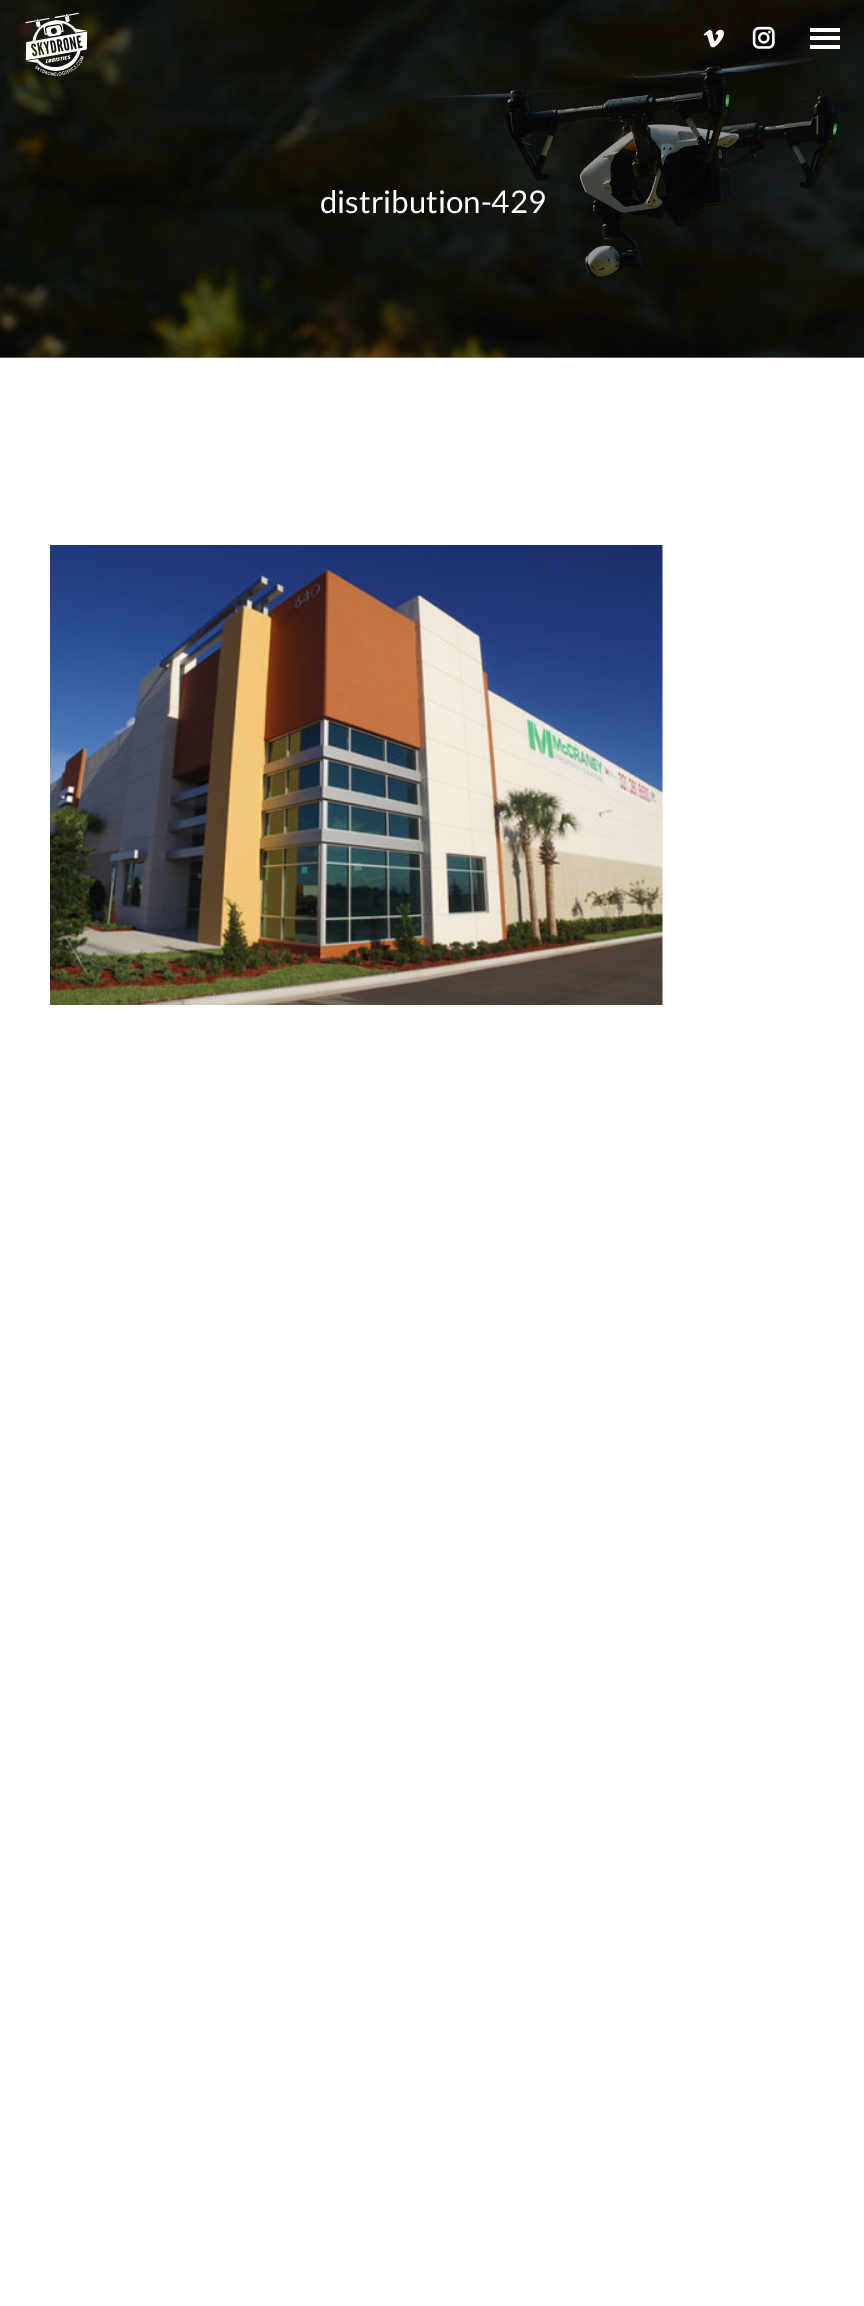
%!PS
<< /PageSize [864 2306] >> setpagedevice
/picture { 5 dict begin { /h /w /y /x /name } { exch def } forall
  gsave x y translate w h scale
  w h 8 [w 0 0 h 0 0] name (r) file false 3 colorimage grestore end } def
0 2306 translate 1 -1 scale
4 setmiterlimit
1 setgray
0 0 864 2306 rectfill
0.702 setgray
0 357 864 1 rectfill
(img4.rgb) 0 0 864 358 picture
(img1.rgb) 25 13 63 63 picture
(img2.rgb) 703 29 21 19 picture
(img3.rgb) 752 26 23 23 picture
1 setgray
810 28 30 4 rectfill
810 36 30 4 rectfill
810 45 30 4 rectfill
/Lato-Regular [31.25 0 0 -31.25 0 0] selectfont
320 213 moveto (distribution-429) show
(img5.rgb) 50 545 613 460 picture
showpage
